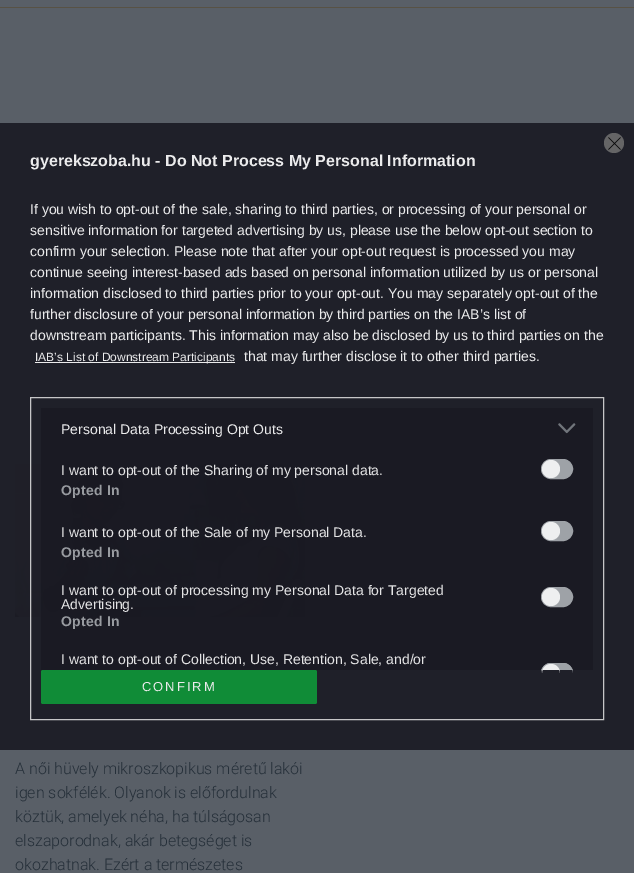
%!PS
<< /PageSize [634 873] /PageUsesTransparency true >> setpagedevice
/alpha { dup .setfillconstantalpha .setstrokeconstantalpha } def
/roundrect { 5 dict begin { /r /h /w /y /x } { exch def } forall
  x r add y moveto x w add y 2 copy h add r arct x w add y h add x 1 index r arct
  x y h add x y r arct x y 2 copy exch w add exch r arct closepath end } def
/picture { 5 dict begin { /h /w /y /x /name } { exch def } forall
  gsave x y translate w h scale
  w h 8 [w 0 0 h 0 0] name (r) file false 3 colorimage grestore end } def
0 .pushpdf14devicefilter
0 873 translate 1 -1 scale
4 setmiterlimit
0.349 0.373 0.404 setrgbcolor
0 0 634 873 rectfill
0.122 0.125 0.161 setrgbcolor
0 123 634 627 rectfill
0.396 0.396 0.4 setrgbcolor
newpath 614 143 10 0 360 arc closepath fill
0.035 0.035 0.039 setrgbcolor
0.5 setlinewidth
1 setlinecap
1 setlinejoin
newpath 608.5 137.5 moveto 620.5 149.5 lineto 620.5 137.5 moveto 608.5 149.5 lineto stroke
/LiberationSans-Bold [16 0 0 -16 0 0] selectfont
0.922 0.922 0.925 setrgbcolor
30 166 moveto (gyerekszoba.hu - Do Not Process My Personal Information) show
/LiberationSans-Regular [14 0 0 -14 0 0] selectfont
30 214 moveto (If you wish to opt-out of the sale, sharing to third parties, or processing of your personal or) show
30 235 moveto (sensitive information for targeted advertising by us, please use the below opt-out section to) show
30 256 moveto (confirm your selection. Please note that after your opt-out request is processed you may) show
30 277 moveto (continue seeing interest-based ads based on personal information utilized by us or personal) show
30 298 moveto (information disclosed to third parties prior to your opt-out. You may separately opt-out of the) show
30 319 moveto (further disclosure of your personal information by third parties on the IAB’s list of) show
30 340 moveto (downstream participants. This information may also be disclosed by us to third parties on the) show
35 362 200 1 rectfill
/LiberationSans-Regular [12 0 0 -12 0 0] selectfont
35 361 moveto (IAB’s List of Downstream Participants) show
/LiberationSans-Regular [14 0 0 -14 0 0] selectfont
244 361 moveto (that may further disclose it to other third parties.) show
(img2.rgb) 15 464 290 153 picture
0.9 alpha
0.847 setgray
1 setlinewidth
0 setlinecap
0 setlinejoin
30.5 397.5 573 322 rectstroke
0.098 0.098 0.133 setrgbcolor
41 408 552 262 rectfill
1 alpha
0.922 0.922 0.925 setrgbcolor
61 434 moveto (Personal Data Processing Opt Outs) show
(img1.rgb) 558 423 18 11 picture
0.894 0.894 0.898 setrgbcolor
61 475 moveto (I want to opt-out of the Sharing of my personal data.) show
0.62 0.635 0.655 setrgbcolor
541.5 459.5 31 19 9.5 roundrect gsave fill grestore
stroke
0.933 0.937 0.941 setrgbcolor
newpath 551 469 9 0 360 arc closepath fill
/LiberationSans-Bold [14 0 0 -14 0 0] selectfont
0.596 0.608 0.627 setrgbcolor
61 495 moveto 0.25 0 (Opted In) ashow
/LiberationSans-Regular [14 0 0 -14 0 0] selectfont
0.894 0.894 0.898 setrgbcolor
61 537 moveto (I want to opt-out of the Sale of my Personal Data.) show
0.62 0.635 0.655 setrgbcolor
541.5 521.5 31 19 9.5 roundrect gsave fill grestore
stroke
0.933 0.937 0.941 setrgbcolor
newpath 551 531 9 0 360 arc closepath fill
/LiberationSans-Bold [14 0 0 -14 0 0] selectfont
0.596 0.608 0.627 setrgbcolor
61 557 moveto 0.25 0 (Opted In) ashow
/LiberationSans-Regular [14 0 0 -14 0 0] selectfont
0.894 0.894 0.898 setrgbcolor
61 595 moveto (I want to opt-out of processing my Personal Data for Targeted) show
61 609 moveto (Advertising.) show
0.62 0.635 0.655 setrgbcolor
541.5 587.5 31 19 9.5 roundrect gsave fill grestore
stroke
0.933 0.937 0.941 setrgbcolor
newpath 551 597 9 0 360 arc closepath fill
/LiberationSans-Bold [14 0 0 -14 0 0] selectfont
0.596 0.608 0.627 setrgbcolor
61 626 moveto 0.25 0 (Opted In) ashow
/LiberationSans-Regular [14 0 0 -14 0 0] selectfont
0.894 0.894 0.898 setrgbcolor
61 664 moveto (I want to opt-out of Collection, Use, Retention, Sale, and/or) show
0.62 0.635 0.655 setrgbcolor
newpath 551 663 moveto 563 663 lineto 568.5 663 573 667.5 573 673 curveto 573 670 lineto 541 670 lineto 541 673 lineto 541 667.5 545.5 663 551 663 curveto closepath fill
gsave
41 408 552 262 rectclip
541.5 663.5 31 19 9.5 roundrect stroke
grestore
0.933 0.937 0.941 setrgbcolor
newpath 551 664 moveto 556 664 560 668 560 673 curveto 560 670 lineto 542 670 lineto 542 673 lineto 542 668 546 664 551 664 curveto closepath fill
0.9 alpha
0.055 0.596 0.224 setrgbcolor
41 670 276 34 2 roundrect fill
/LiberationSans-Regular [13 0 0 -13 0 0] selectfont
1 alpha
0.922 0.922 0.925 setrgbcolor
142 691 moveto 2 0 (CONFIRM) ashow
0.345 0.322 0.271 setrgbcolor
0 7 634 1 rectfill
/Roboto-Light [16 0 0 -16 0 0] selectfont
0.145 0.184 0.224 setrgbcolor
15 774 moveto (A női hüvely mikroszkopikus méretű lakói) show
15 798 moveto (igen sokfélék. Olyanok is előfordulnak) show
15 822 moveto (köztük, amelyek néha, ha túlságosan) show
15 846 moveto (elszaporodnak, akár betegséget is) show
15 870 moveto (okozhatnak. Ezért a természetes) show
.poppdf14devicefilter showpage
